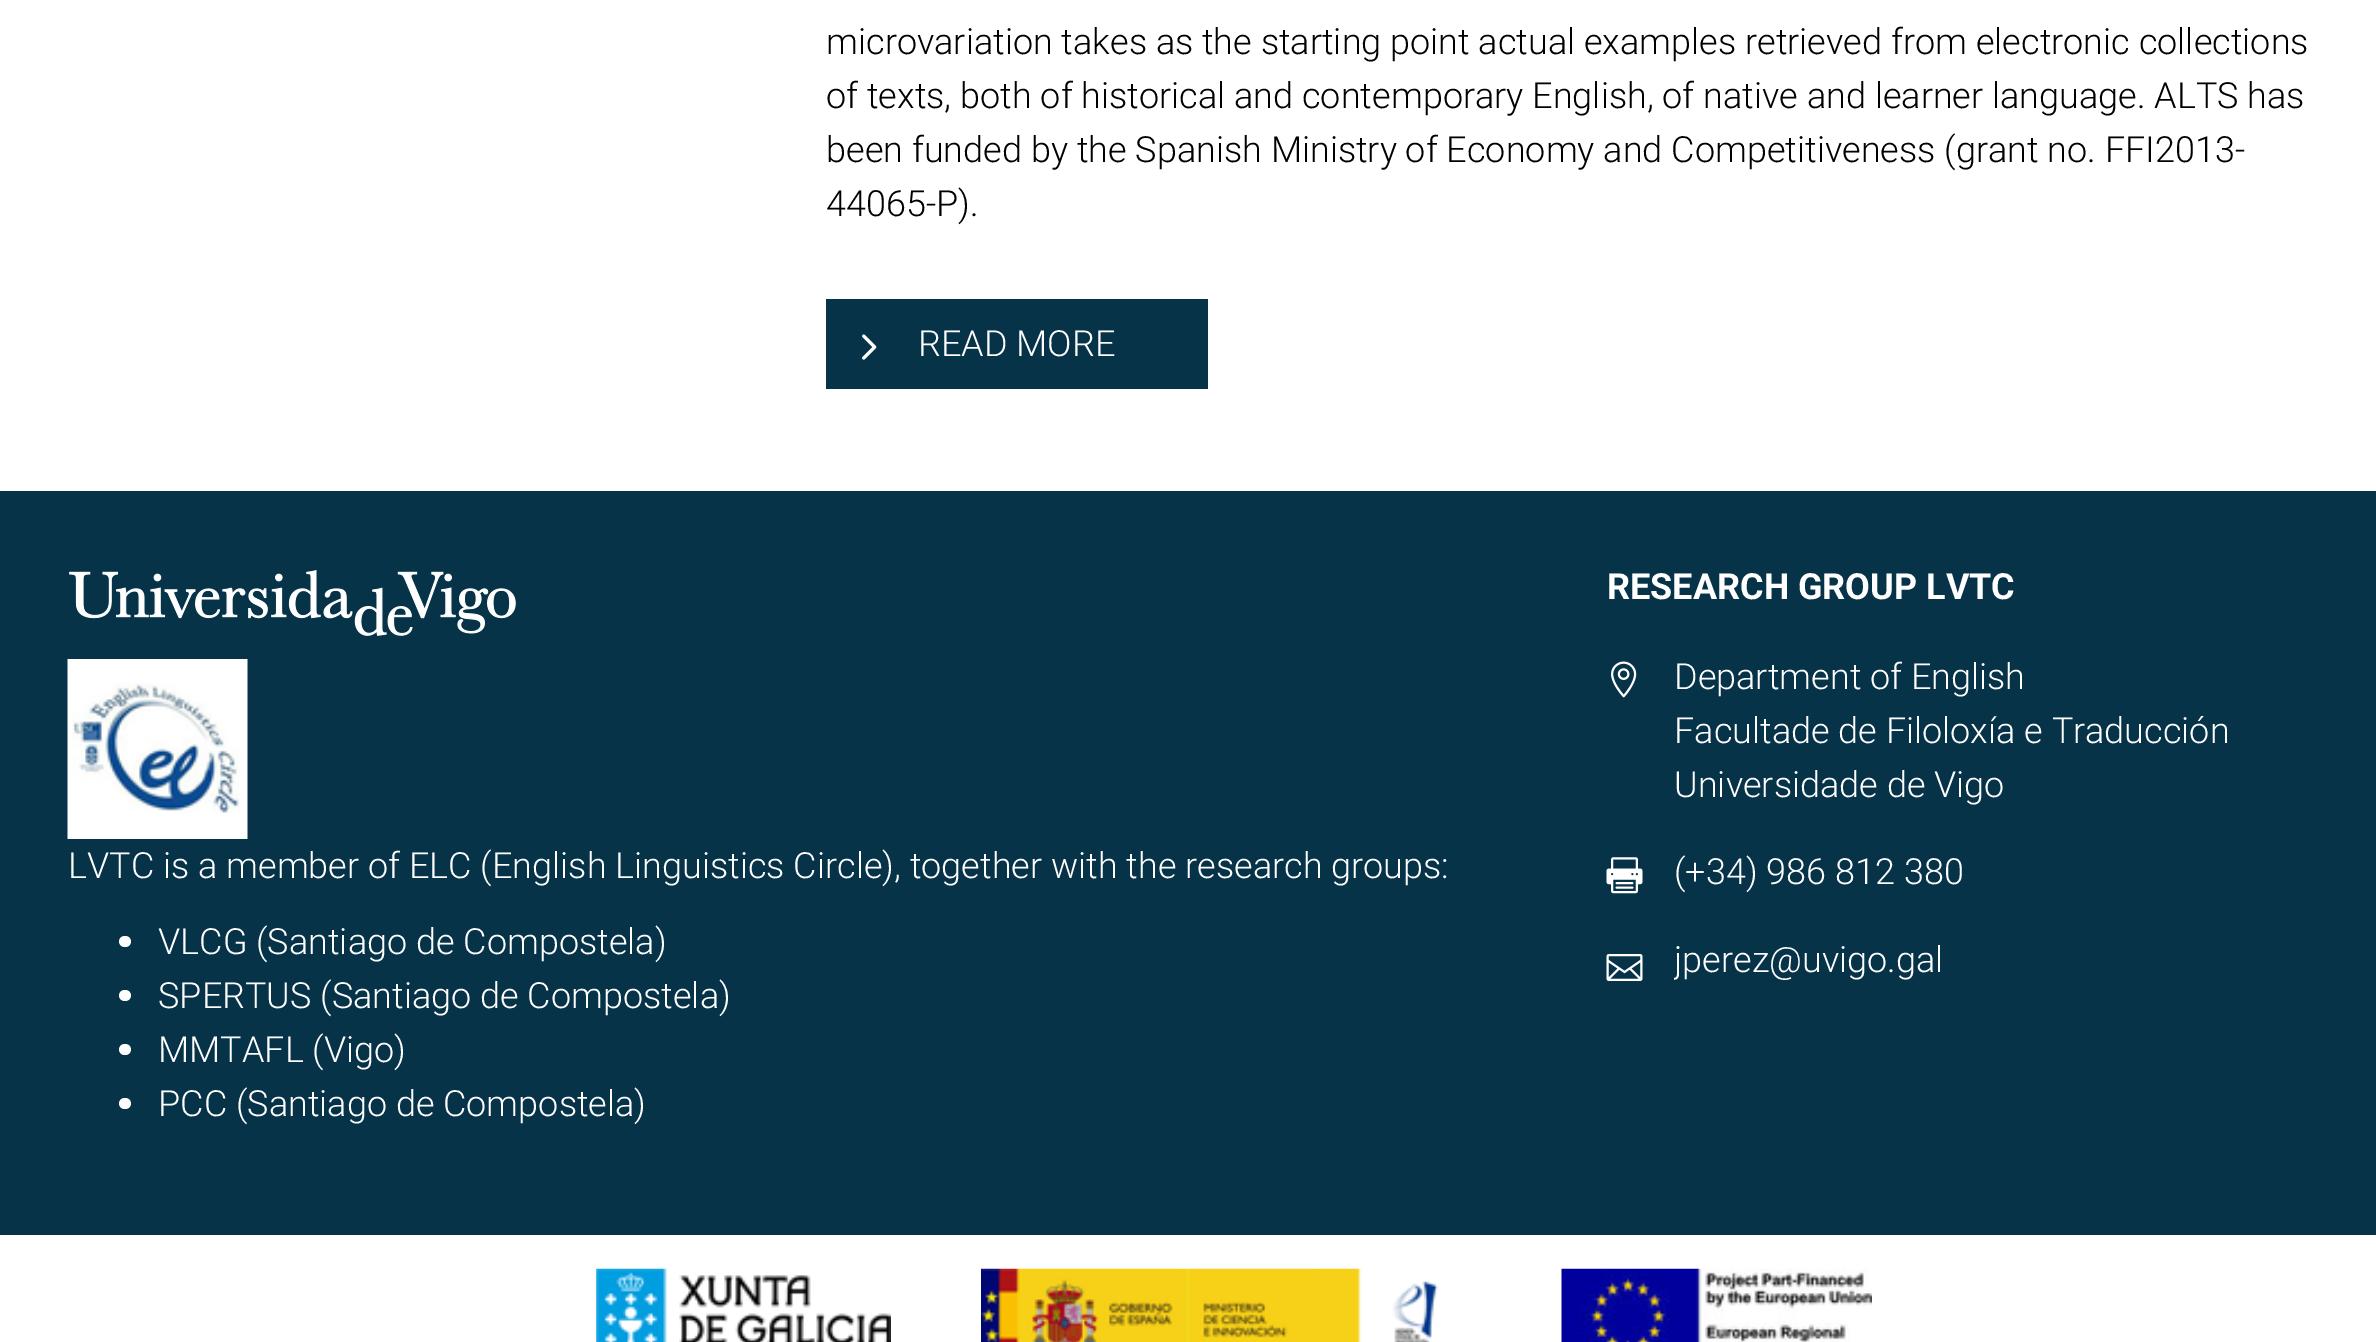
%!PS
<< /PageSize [2376 1342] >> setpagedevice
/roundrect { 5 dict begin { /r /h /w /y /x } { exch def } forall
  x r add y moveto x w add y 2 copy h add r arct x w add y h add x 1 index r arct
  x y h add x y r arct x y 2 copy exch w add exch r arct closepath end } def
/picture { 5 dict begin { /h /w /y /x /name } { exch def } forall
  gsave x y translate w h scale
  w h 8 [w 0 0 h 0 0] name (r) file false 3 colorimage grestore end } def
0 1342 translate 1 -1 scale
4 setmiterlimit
1 setgray
0 0 2376 1342 rectfill
/Roboto-Light [36 0 0 -36 0 0] selectfont
0 setgray
826 54 moveto (microvariation takes as the starting point actual examples retrieved from electronic collections) show
826 108 moveto (of texts, both of historical and contemporary English, of native and learner language. ALTS has) show
826 162 moveto (been funded by the Spanish Ministry of Economy and Competitiveness \(grant no. FFI2013-) show
826 216 moveto (44065-P\).) show
0.027 0.2 0.286 setrgbcolor
826 299 382 90 rectfill
(img1.rgb) 862 334 15 26 picture
1 setgray
918 356 moveto (READ MORE) show
0.027 0.2 0.286 setrgbcolor
0 491 2376 744 rectfill
(img2.rgb) 69 570 447 66 picture
(img3.rgb) 67 659 181 180 picture
1 setgray
68 878 moveto (LVTC is a member of ELC \(English Linguistics Circle\), together with the research groups:) show
119 936 12 11 5.5 roundrect fill
158 954 moveto (VLCG \(Santiago de Compostela\)) show
119 990 12 11 5.5 roundrect fill
158 1008 moveto (SPERTUS \(Santiago de Compostela\)) show
119 1044 12 11 5.5 roundrect fill
158 1062 moveto (MMTAFL \(Vigo\)) show
119 1098 12 11 5.5 roundrect fill
158 1116 moveto (PCC \(Santiago de Compostela\)) show
/Roboto-Bold [36 0 0 -36 0 0] selectfont
1607 599 moveto (RESEARCH GROUP LVTC) show
(img4.rgb) 1611 661 26 37 picture
/Roboto-Light [36 0 0 -36 0 0] selectfont
1674 689 moveto (Department of English) show
1674 743 moveto (Facultade de Filoloxía e Traducción) show
1674 797 moveto (Universidade de Vigo) show
(img5.rgb) 1606 857 37 37 picture
1674 884 moveto (\(+34\) 986 812 380) show
(img6.rgb) 1606 954 37 27 picture
gsave
1674 934 635 54 rectclip
1674 972 moveto (jperez@uvigo.gal) show
grestore
(img7.rgb) 596 1268 295 74 picture
(img8.rgb) 981 1268 458 74 picture
(img9.rgb) 1561 1268 311 74 picture
showpage
